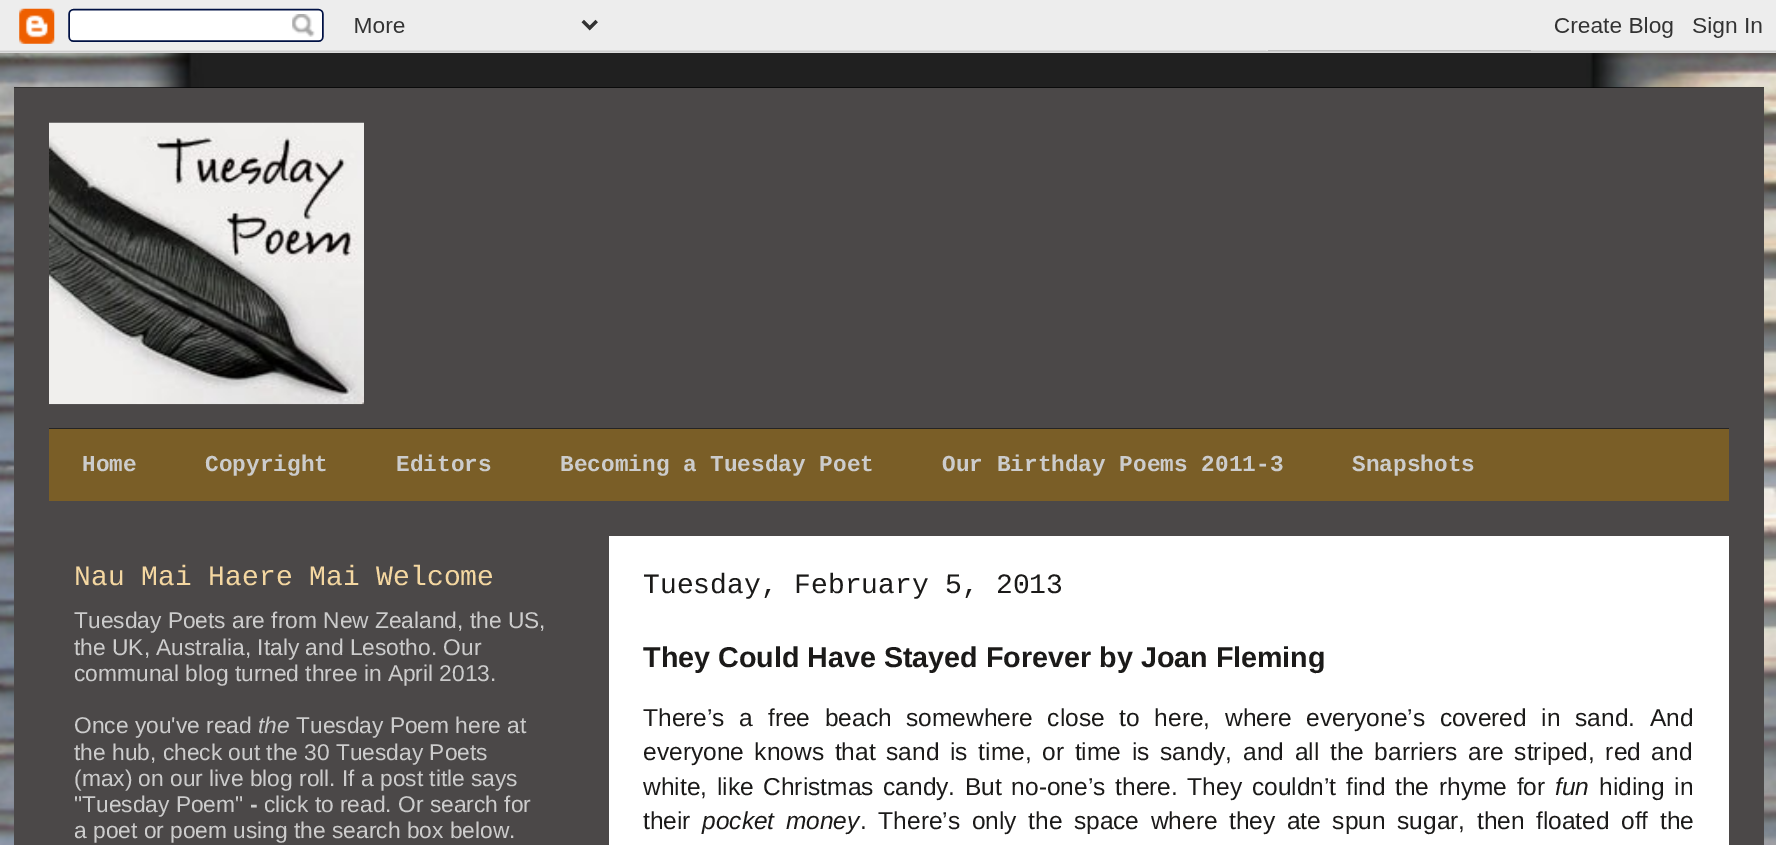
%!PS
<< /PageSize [1776 845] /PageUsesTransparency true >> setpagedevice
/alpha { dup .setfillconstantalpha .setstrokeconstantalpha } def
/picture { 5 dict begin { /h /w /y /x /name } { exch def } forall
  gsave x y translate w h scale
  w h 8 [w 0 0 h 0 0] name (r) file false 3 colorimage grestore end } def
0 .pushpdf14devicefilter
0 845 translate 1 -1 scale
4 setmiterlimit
1 setgray
0 0 1776 845 rectfill
(img1.rgb) 0 50 1776 795 picture
(img2.rgb) 0 0 1776 53 picture
0.98 0.941 0.941 setrgbcolor
14 88 1750 757 rectfill
0.7 alpha
0 setgray
14 87 1750 758 rectfill
1 alpha
(img3.rgb) 49 122 315 283 picture
0.957 0.737 0.31 setrgbcolor
49 429 1680 72 rectfill
0.5 alpha
0 setgray
49 428 1680 73 rectfill
/LiberationMono-Bold [22.75 0 0 -22.75 0 0] selectfont
1 alpha
0.8 setgray
82 471 moveto (Home) show
205 471 moveto (Copyright) show
396 471 moveto (Editors) show
560 471 moveto (Becoming a Tuesday Poet) show
942 471 moveto (Our Birthday Poems 2011-3) show
1352 471 moveto (Snapshots) show
/LiberationMono-Regular [28 0 0 -28 0 0] selectfont
0.957 0.843 0.631 setrgbcolor
74 585 moveto (Nau Mai Haere Mai Welcome) show
/LiberationSans-Regular [22.75 0 0 -22.75 0 0] selectfont
0.8 setgray
74 628 moveto (Tuesday Poets are from New Zealand, the US,) show
74 655 moveto (the UK, Australia, Italy and Lesotho. Our) show
74 681 moveto (communal blog turned three in April 2013.) show
74 733 moveto (Once you've read) show
/LiberationSans-Italic [22.75 0 0 -22.75 0 0] selectfont
258 733 moveto (the) show
/LiberationSans-Regular [22.75 0 0 -22.75 0 0] selectfont
296 733 moveto (Tuesday Poem here at) show
74 760 moveto (the hub, check out the 30 Tuesday Poets) show
74 786 moveto (\(max\) on our live blog roll. If a post title says) show
74 812 moveto ("Tuesday Poem") show
/LiberationSans-Bold [22.75 0 0 -22.75 0 0] selectfont
250 812 moveto (-) show
/LiberationSans-Regular [22.75 0 0 -22.75 0 0] selectfont
264 812 moveto (click to read. Or search for) show
74 838 moveto (a poet or poem using the search box below.) show
1 setgray
609 536 1120 309 rectfill
/LiberationMono-Regular [28 0 0 -28 0 0] selectfont
0.106 0.102 0.098 setrgbcolor
643 593 moveto (Tuesday, February 5, 2013) show
/LiberationSans-Bold [28.7 0 0 -28.7 0 0] selectfont
643 667 moveto (They Could Have Stayed Forever by Joan Fleming) show
/LiberationSans-Regular [24.5 0 0 -24.5 0 0] selectfont
643 726 moveto 7.9 0 32 (There’s a free beach somewhere close to here, where everyone’s covered in sand. And) widthshow
643 760 moveto 3.9 0 32 (everyone knows that sand is time, or time is sandy, and all the barriers are striped, red and) widthshow
643 795 moveto 2.9 0 32 (white, like Christmas candy. But no-one’s there. They couldn’t find the rhyme for) widthshow
/LiberationSans-Italic [24.5 0 0 -24.5 0 0] selectfont
1555 795 moveto (fun) show
/LiberationSans-Regular [24.5 0 0 -24.5 0 0] selectfont
1599 795 moveto 2.9 0 32 (hiding in) widthshow
643 829 moveto (their) show
/LiberationSans-Italic [24.5 0 0 -24.5 0 0] selectfont
702 829 moveto 4.75 0 32 (pocket money) widthshow
/LiberationSans-Regular [24.5 0 0 -24.5 0 0] selectfont
860 829 moveto 4.75 0 32 (. There’s only the space where they ate spun sugar, then floated off the) widthshow
.poppdf14devicefilter showpage
